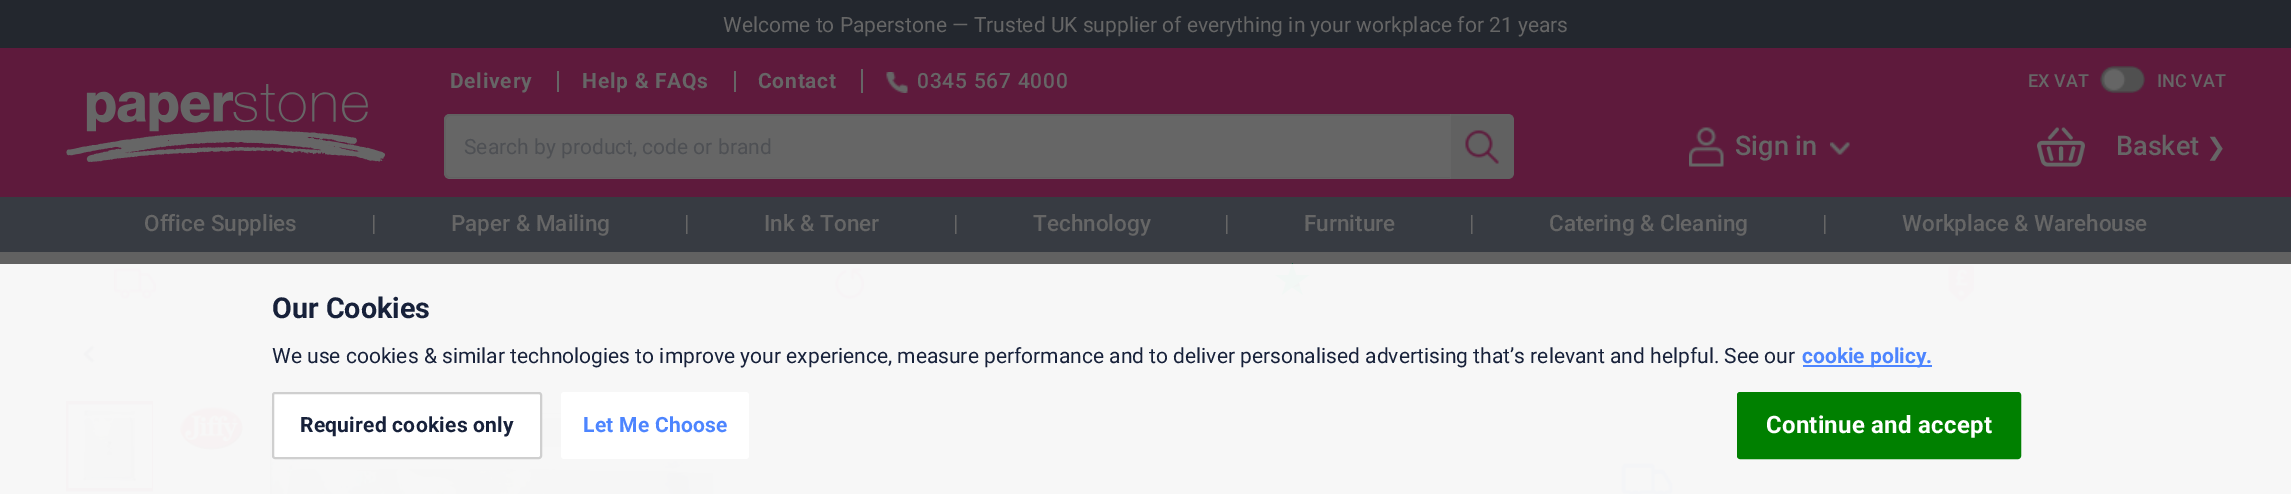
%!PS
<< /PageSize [2291 494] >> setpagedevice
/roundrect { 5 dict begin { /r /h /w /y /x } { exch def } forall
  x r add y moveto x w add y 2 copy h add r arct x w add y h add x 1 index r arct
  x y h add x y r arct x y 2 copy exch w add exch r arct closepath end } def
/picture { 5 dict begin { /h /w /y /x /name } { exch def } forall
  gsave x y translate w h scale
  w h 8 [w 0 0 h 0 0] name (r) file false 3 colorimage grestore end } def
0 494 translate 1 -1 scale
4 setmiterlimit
0.969 setgray
0 0 2291 494 rectfill
0.137 0.153 0.18 setrgbcolor
0 0 2291 48 rectfill
/Roboto-Regular [21 0 0 -21 0 0] selectfont
0.4 setgray
723 32 moveto (Welcome to Paperstone — Trusted UK supplier of everything in your workplace for 21 years) show
0.369 0.102 0.235 setrgbcolor
0 48 2291 149 rectfill
(img1.rgb) 66 84 320 78 picture
/Roboto-Bold [21 0 0 -21 0 0] selectfont
0.4 setgray
450 88 moveto 0.75 0 (Delivery) ashow
557 71 2 21 rectfill
582 88 moveto 0.75 0 (Help & FAQs) ashow
734 71 2 21 rectfill
758 88 moveto 0.75 0 (Contact) ashow
861 69 2 24 rectfill
(img2.rgb) 886 72 22 21 picture
/Roboto-Medium [21 0 0 -21 0 0] selectfont
917 88 moveto 0.75 0 (0345 567 4000) ashow
/Roboto-Medium [18 0 0 -18 0 0] selectfont
2028 87 moveto (EX VAT) show
(img3.rgb) 2100 66 45 27 picture
2157 87 moveto (INC VAT) show
newpath 450 114 moveto 1451 114 lineto 1451 179 lineto 450 179 lineto 446.5 179 444 176.5 444 173 curveto 444 120 lineto 444 116.5 446.5 114 450 114 curveto closepath fill
0.38 setgray
newpath 450 114 moveto 1450 114 lineto 1450 178 lineto 450 178 lineto 447 178 444 176 444 172 curveto 444 120 lineto 444 117 447 114 450 114 curveto closepath 450 116 moveto 1450 116 lineto 1450 177 lineto 450 177 lineto 448 177 446 175 446 172 curveto 446 120 lineto 446 118 448 116 450 116 curveto closepath eofill
/Roboto-Regular [21 0 0 -21 0 0] selectfont
0.306 0.314 0.329 setrgbcolor
464 154 moveto (Search by product, code or brand) show
0.38 setgray
newpath 1451 114 moveto 1508 114 lineto 1511.5 114 1514 116.5 1514 120 curveto 1514 173 lineto 1514 176.5 1511.5 179 1508 179 curveto 1451 179 lineto closepath fill
(img4.rgb) 1465 130 34 34 picture
(img5.rgb) 1689 127 35 40 picture
/Roboto-Medium [27 0 0 -27 0 0] selectfont
0.4 setgray
1735 155 moveto (Sign in) show
(img6.rgb) 1830 142 20 13 picture
(img7.rgb) 2037 127 48 40 picture
2116 155 moveto (Basket) show
/DejaVuSans-Regular [24 0 0 -24 0 0] selectfont
2206 155 moveto (❯) show
0.216 0.231 0.259 setrgbcolor
0 197 2291 55 rectfill
/Roboto-Medium [22.5 0 0 -22.5 0 0] selectfont
0.4 setgray
144 231 moveto (Office Supplies) show
/Roboto-Regular [22.5 0 0 -22.5 0 0] selectfont
371 231 moveto (|) show
/Roboto-Medium [22.5 0 0 -22.5 0 0] selectfont
451 231 moveto (Paper & Mailing) show
/Roboto-Regular [22.5 0 0 -22.5 0 0] selectfont
684 231 moveto (|) show
/Roboto-Medium [22.5 0 0 -22.5 0 0] selectfont
764 231 moveto (Ink & Toner) show
/Roboto-Regular [22.5 0 0 -22.5 0 0] selectfont
953 231 moveto (|) show
/Roboto-Medium [22.5 0 0 -22.5 0 0] selectfont
1033 231 moveto (Technology) show
/Roboto-Regular [22.5 0 0 -22.5 0 0] selectfont
1224 231 moveto (|) show
/Roboto-Medium [22.5 0 0 -22.5 0 0] selectfont
1304 231 moveto (Furniture) show
/Roboto-Regular [22.5 0 0 -22.5 0 0] selectfont
1469 231 moveto (|) show
/Roboto-Medium [22.5 0 0 -22.5 0 0] selectfont
1549 231 moveto (Catering & Cleaning) show
/Roboto-Regular [22.5 0 0 -22.5 0 0] selectfont
1822 231 moveto (|) show
/Roboto-Medium [22.5 0 0 -22.5 0 0] selectfont
1902 231 moveto (Workplace & Warehouse) show
0.38 setgray
0 252 2291 12 rectfill
(img8.rgb) 114 268 42 31 picture
(img9.rgb) 835 268 29 31 picture
(img10.rgb) 1275 263 35 33 picture
(img11.rgb) 1948 265 26 37 picture
/Roboto-Bold [28.75 0 0 -28.75 0 0] selectfont
0.09 0.129 0.227 setrgbcolor
272 318 moveto (Our Cookies) show
/Roboto-Regular [21 0 0 -21 0 0] selectfont
272 363 moveto (We use cookies & similar technologies to improve your experience, measure performance and to deliver personalised advertising that’s relevant and helpful. See our) show
0.302 0.522 1 setrgbcolor
1803 365 129 2 rectfill
/Roboto-Bold [21 0 0 -21 0 0] selectfont
1802 363 moveto (cookie policy.) show
(img15.rgb) 268 401 450 93 picture
1 setgray
273 393 268 65 2 roundrect gsave fill grestore
0.812 setgray
2 setlinewidth
stroke
0.09 0.129 0.227 setrgbcolor
300 432 moveto 0.25 0 (Required cookies only) ashow
1 setgray
561 392 188 67 3 roundrect fill
0.302 0.522 1 setrgbcolor
583 432 moveto 0.25 0 (Let Me Choose) ashow
0 0.502 0 setrgbcolor
1738 393 282 65 2 roundrect gsave fill grestore
stroke
/Roboto-Bold [24 0 0 -24 0 0] selectfont
1 setgray
1766 433 moveto 0.25 0 (Continue and accept) ashow
(img12.rgb) 82 345 13 18 picture
gsave
66 399 87 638 rectclip
0.965 0.953 0.957 setrgbcolor
3 setlinewidth
66.5 402.5 87 87 rectstroke
grestore
(img13.rgb) 83 409 55 73 picture
(img14.rgb) 180 406 63 44 picture
(img16.rgb) 1621 463 52 31 picture
showpage
